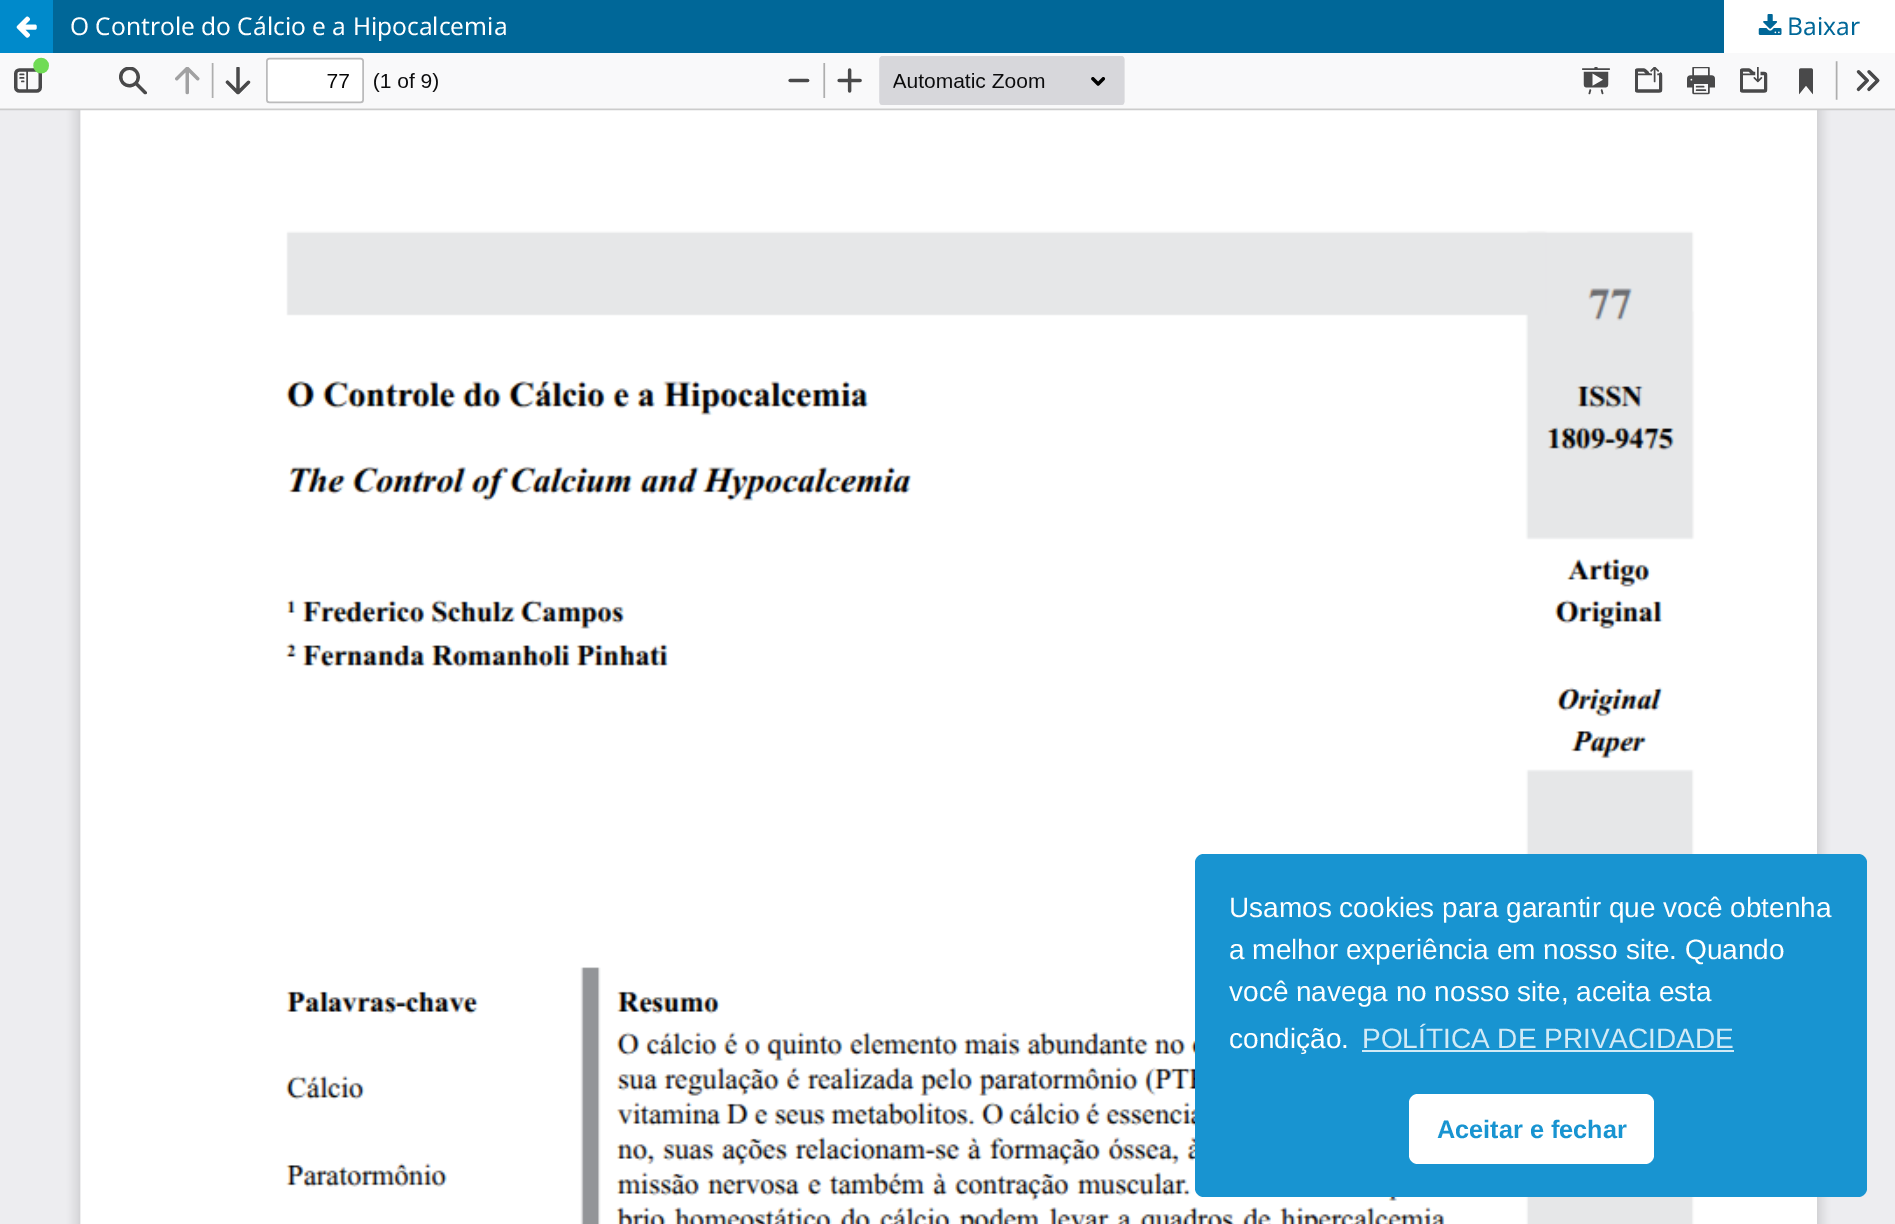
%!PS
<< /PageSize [1895 1224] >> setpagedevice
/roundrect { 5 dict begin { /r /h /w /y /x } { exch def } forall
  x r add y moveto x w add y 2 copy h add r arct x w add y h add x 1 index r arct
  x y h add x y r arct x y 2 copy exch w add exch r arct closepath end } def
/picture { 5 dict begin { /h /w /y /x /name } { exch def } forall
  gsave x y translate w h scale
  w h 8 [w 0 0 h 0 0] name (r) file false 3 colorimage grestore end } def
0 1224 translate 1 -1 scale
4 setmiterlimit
1 setgray
0 0 1895 1224 rectfill
0 0.404 0.596 setrgbcolor
53 0 1671 53 rectfill
0 0.541 0.796 setrgbcolor
0 0 53 53 rectfill
(img1.rgb) 16 16 21 22 picture
/NotoSans-Regular [24.5 0 0 -24.5 0 0] selectfont
1 setgray
70 35 moveto (O Controle do Cálcio e a Hipocalcemia) show
(img2.rgb) 1758 14 24 21 picture
0 0.404 0.596 setrgbcolor
1787 35 moveto (Baixar) show
(img3.rgb) 0 53 1895 1171 picture
0.094 0.58 0.82 setrgbcolor
1195 854 672 343 9 roundrect fill
/LiberationSans-Regular [28 0 0 -28 0 0] selectfont
1 setgray
1229 917 moveto (Usamos cookies para garantir que você obtenha) show
1229 959 moveto (a melhor experiência em nosso site. Quando) show
1229 1001 moveto (você navega no nosso site, aceita esta) show
1229 1048 moveto (condição.) show
0.82 0.918 0.965 setrgbcolor
1362 1048 moveto (POLÍTICA DE PRIVACIDADE) show
1362 1050 372 2 rectfill
1 setgray
1409 1094 245 70 9 roundrect fill
/LiberationSans-Bold [25.25 0 0 -25.25 0 0] selectfont
0.094 0.58 0.82 setrgbcolor
1437 1138 moveto (Aceitar e fechar) show
showpage
